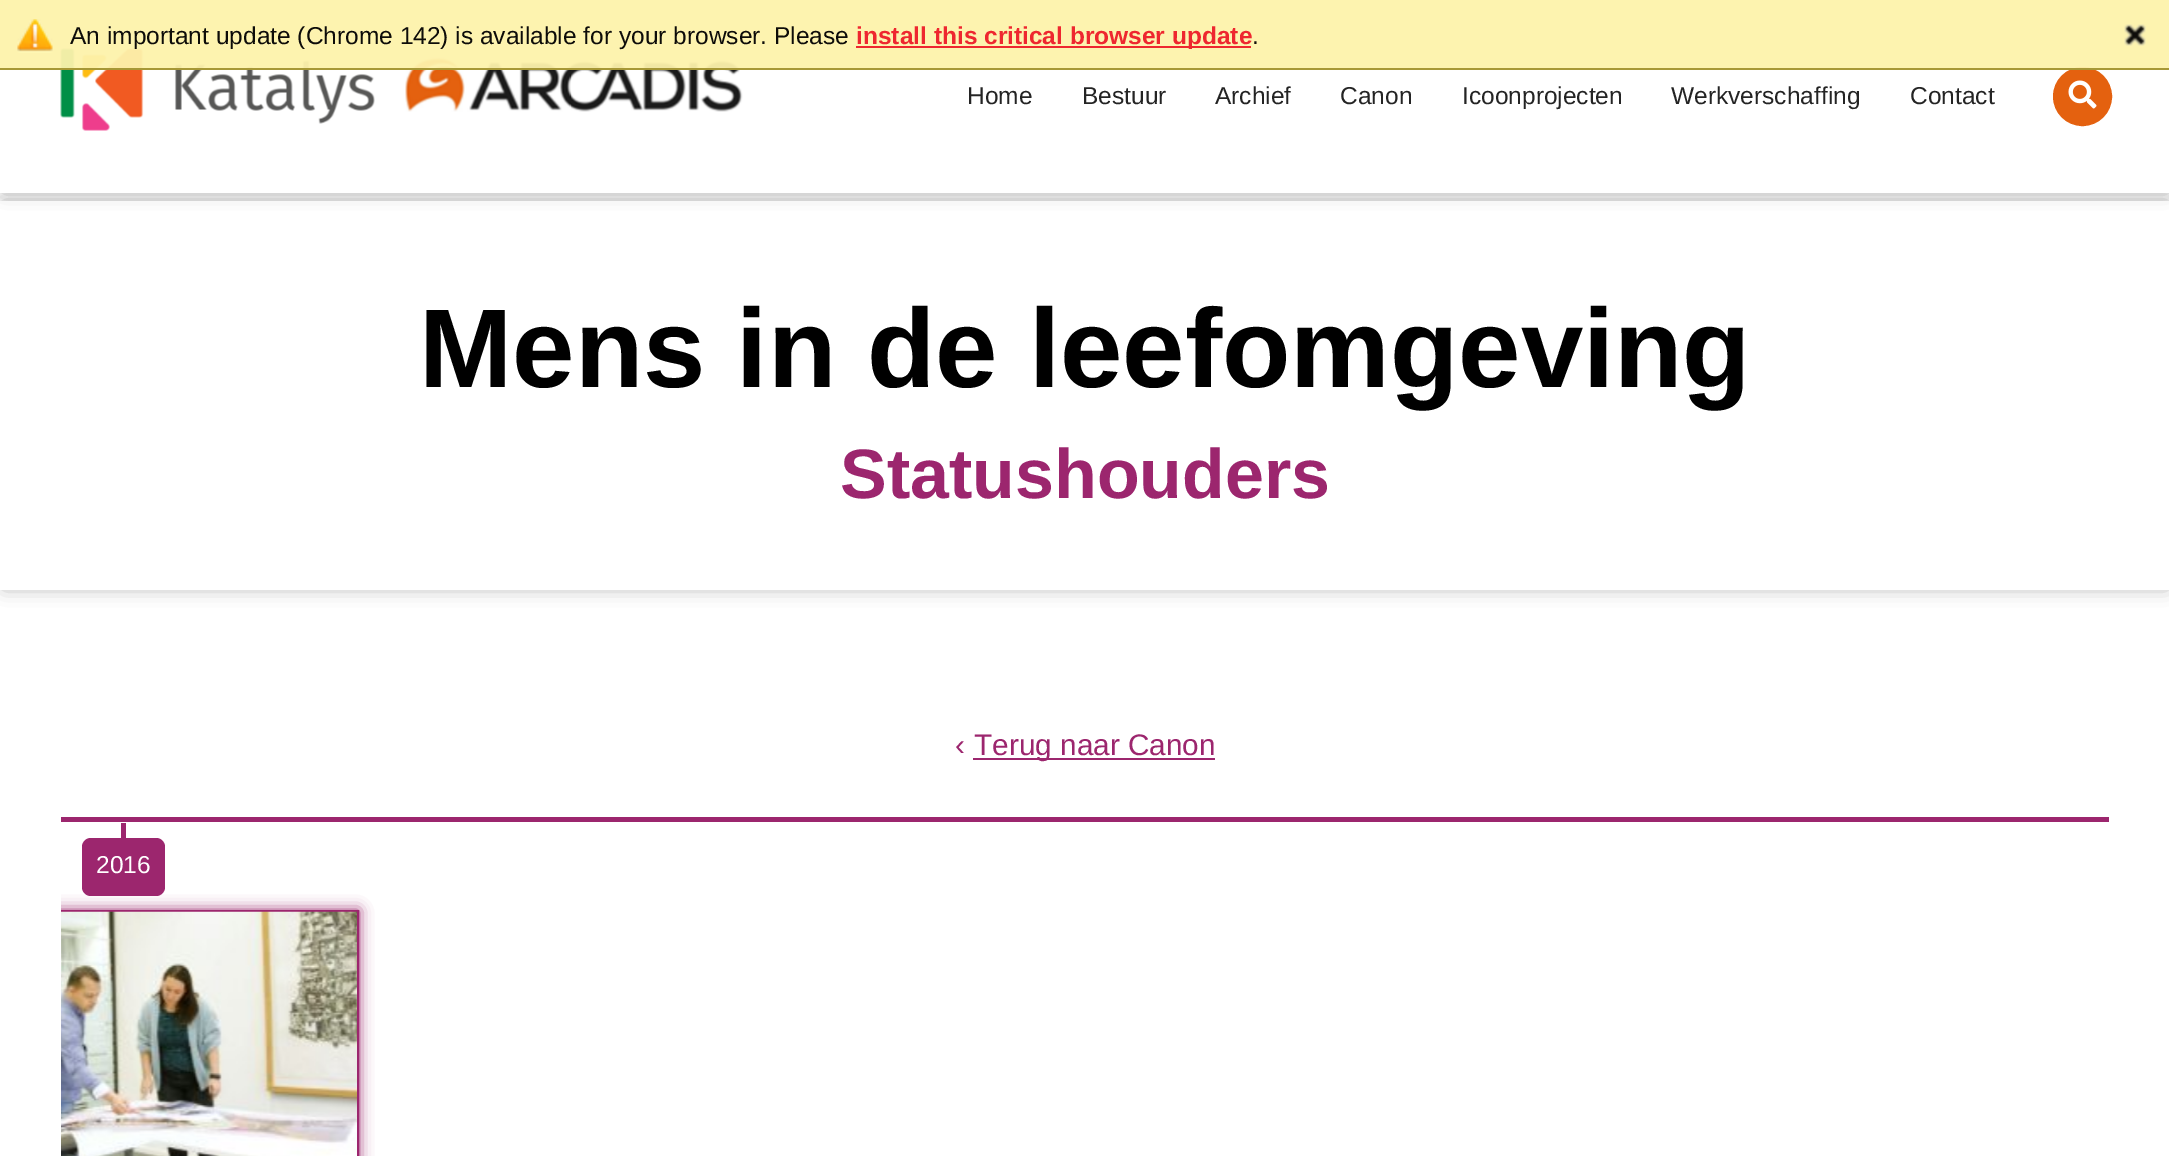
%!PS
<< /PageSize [2169 1156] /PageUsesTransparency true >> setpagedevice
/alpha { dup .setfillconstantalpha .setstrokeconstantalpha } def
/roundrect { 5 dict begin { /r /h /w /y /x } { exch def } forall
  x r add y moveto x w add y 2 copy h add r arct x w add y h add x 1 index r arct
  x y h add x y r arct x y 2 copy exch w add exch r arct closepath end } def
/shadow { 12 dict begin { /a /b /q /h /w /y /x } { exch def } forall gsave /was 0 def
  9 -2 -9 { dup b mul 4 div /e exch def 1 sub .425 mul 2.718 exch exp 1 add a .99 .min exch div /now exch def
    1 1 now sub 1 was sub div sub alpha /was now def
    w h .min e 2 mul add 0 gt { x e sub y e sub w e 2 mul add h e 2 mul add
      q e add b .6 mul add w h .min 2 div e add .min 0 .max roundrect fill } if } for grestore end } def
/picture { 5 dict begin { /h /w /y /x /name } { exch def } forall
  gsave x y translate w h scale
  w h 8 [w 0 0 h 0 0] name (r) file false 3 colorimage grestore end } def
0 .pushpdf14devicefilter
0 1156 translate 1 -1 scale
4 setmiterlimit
1 setgray
0 0 2169 1156 rectfill
0 setgray
4 205 2163 381 0 9.5 0.36 shadow
1 setgray
0 201 2169 389 rectfill
0 setgray
4 4 2163 185 0 9.5 0.36 shadow
1 setgray
0 0 2169 193 rectfill
(img3.rgb) 60 48 315 83 picture
(img4.rgb) 405 57 338 55 picture
0.894 0.38 0.059 setrgbcolor
newpath 2082.5 96.5 27.5 0 360 arc closepath gsave fill grestore
4 setlinewidth
stroke
0.95 alpha
0.992 0.949 0.671 setrgbcolor
0 0 2169 70 rectfill
1 alpha
(img1.rgb) 17 19 36 34 picture
0.95 alpha
0.635 0.576 0.188 setrgbcolor
0 68 2169 2 rectfill
/LiberationSans-Regular [24.5 0 0 -24.5 0 0] selectfont
1 alpha
0.051 0.047 0.035 setrgbcolor
70 44 moveto (An important update \(Chrome 142\) is available for your browser. Please) show
0.933 0.153 0.184 setrgbcolor
856 46 395 2 rectfill
/LiberationSans-Bold [24.5 0 0 -24.5 0 0] selectfont
856 44 moveto (install this critical browser update) show
/LiberationSans-Regular [24.5 0 0 -24.5 0 0] selectfont
0.051 0.047 0.035 setrgbcolor
1252 44 moveto (.) show
(img2.rgb) 2124 24 22 22 picture
0.141 setgray
967 104 moveto (Home) show
1082 104 moveto (Bestuur) show
1215 104 moveto (Archief) show
1340 104 moveto (Canon) show
1462 104 moveto (Icoonprojecten) show
1671 104 moveto (Werkverschaffing) show
1910 104 moveto (Contact) show
(img5.rgb) 2068 80 29 29 picture
/LiberationSans-Bold [112 0 0 -112 0 0] selectfont
0 setgray
419 387 moveto (Mens in de leefomgeving) show
/LiberationSans-Bold [70 0 0 -70 0 0] selectfont
0.612 0.149 0.431 setrgbcolor
840 498 moveto (Statushouders) show
/LiberationSans-Regular [29.75 0 0 -29.75 0 0] selectfont
955 755 moveto (‹) show
973 758 242 2 rectfill
974 755 moveto (Terug naar Canon) show
61 817 2048 5 rectfill
121 823 5 15 rectfill
gsave
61 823 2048 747 rectclip
-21 910 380 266 0 7 1 shadow
grestore
82 838 83 58 9 roundrect fill
/LiberationSans-Regular [24.5 0 0 -24.5 0 0] selectfont
1 setgray
96 873 moveto (2016) show
gsave
61 823 2048 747 rectclip
0.612 0.149 0.431 setrgbcolor
2 setlinewidth
-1 911 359 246 rectstroke
grestore
(img6.rgb) 61 911 296 245 picture
.poppdf14devicefilter showpage
